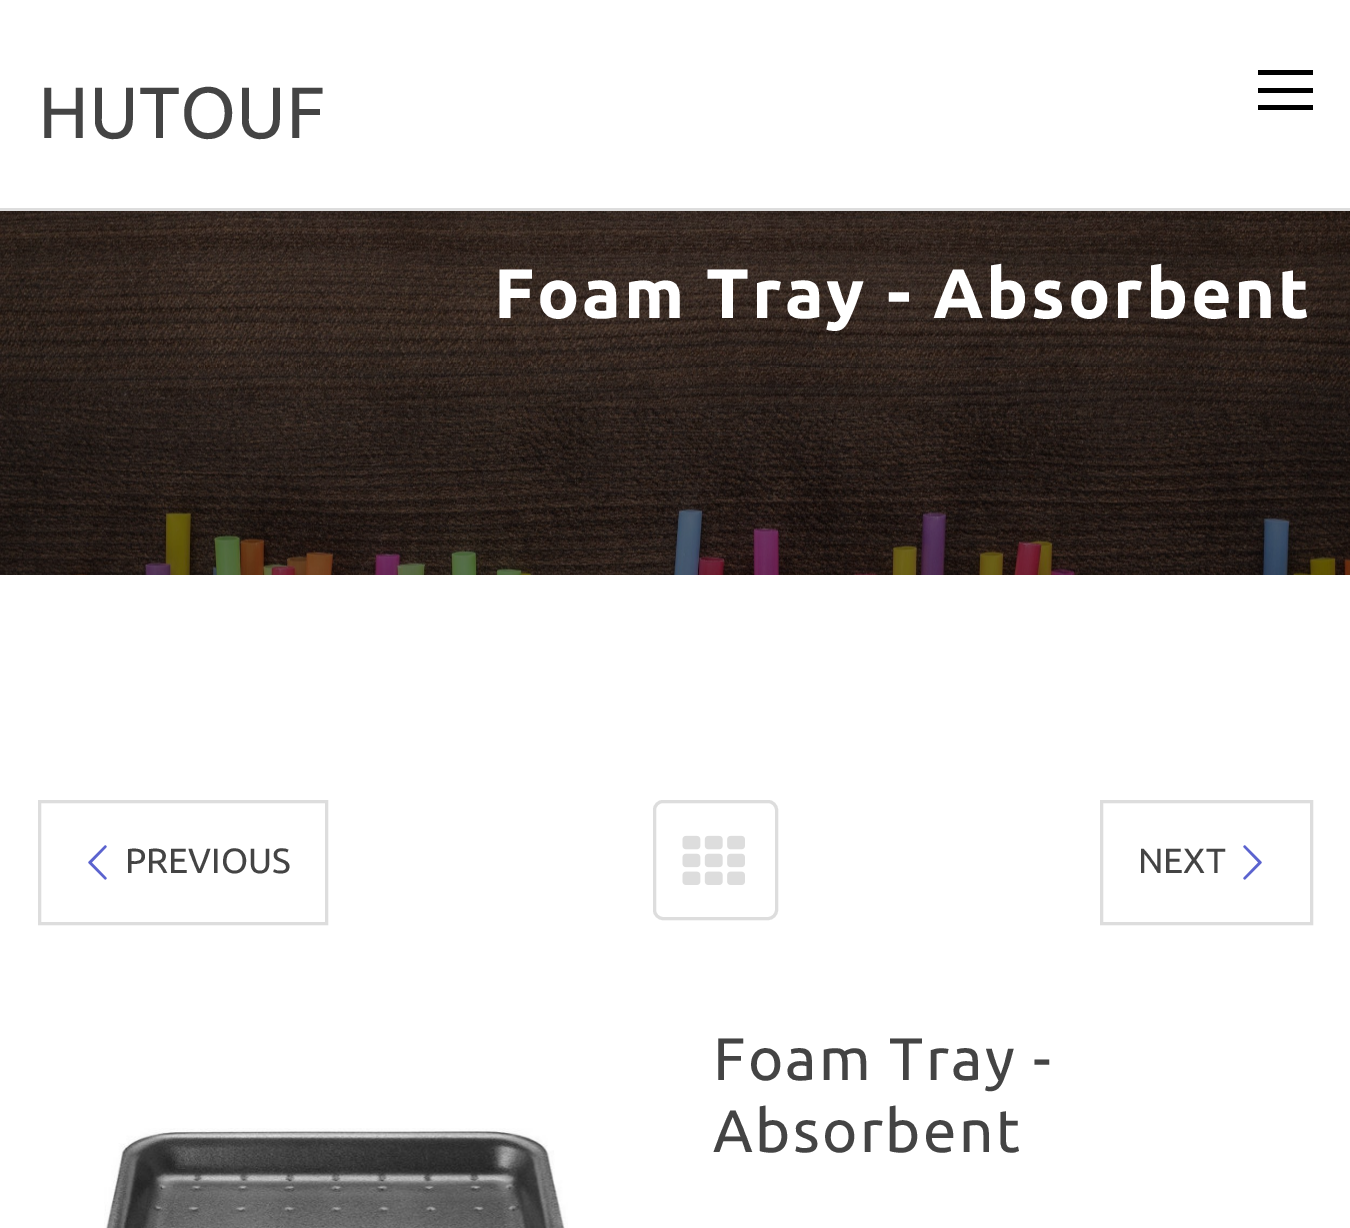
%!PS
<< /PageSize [1350 1228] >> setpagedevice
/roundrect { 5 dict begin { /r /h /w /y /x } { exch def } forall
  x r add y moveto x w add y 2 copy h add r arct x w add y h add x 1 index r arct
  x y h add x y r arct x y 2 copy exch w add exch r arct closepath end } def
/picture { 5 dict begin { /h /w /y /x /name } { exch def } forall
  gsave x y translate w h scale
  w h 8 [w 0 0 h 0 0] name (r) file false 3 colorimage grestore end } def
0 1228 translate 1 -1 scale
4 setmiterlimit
1 setgray
0 0 1350 1228 rectfill
0.867 setgray
0 208 1350 3 rectfill
/Ubuntu-Regular [72.5 0 0 -72.5 0 0] selectfont
0.267 setgray
38 138 moveto (HUTOUF) show
0 setgray
1258 70 55 5 rectfill
1258 88 55 5 rectfill
1258 105 55 5 rectfill
(img1.rgb) 0 211 1350 364 picture
/Ubuntu-Bold [70 0 0 -70 0 0] selectfont
1 setgray
494 318 moveto 2.8 0 (Foam Tray - Absorbent) ashow
0.867 setgray
3 setlinewidth
39.5 801.5 287 122 rectstroke
(img2.rgb) 88 845 19 35 picture
/Ubuntu-Regular [35 0 0 -35 0 0] selectfont
0.267 setgray
125 873 moveto (PREVIOUS) show
0.867 setgray
654.5 801.5 122 117 8.5 roundrect stroke
(img3.rgb) 682 835 63 50 picture
1101.5 801.5 210 122 rectstroke
0.267 setgray
1138 873 moveto (NEXT) show
(img4.rgb) 1243 845 19 35 picture
/Ubuntu-Regular [60 0 0 -60 0 0] selectfont
713 1080 moveto 2.4 0 (Foam Tray -) ashow
713 1152 moveto 2.4 0 (Absorbent) ashow
(img5.rgb) 104 1128 464 100 picture
showpage
